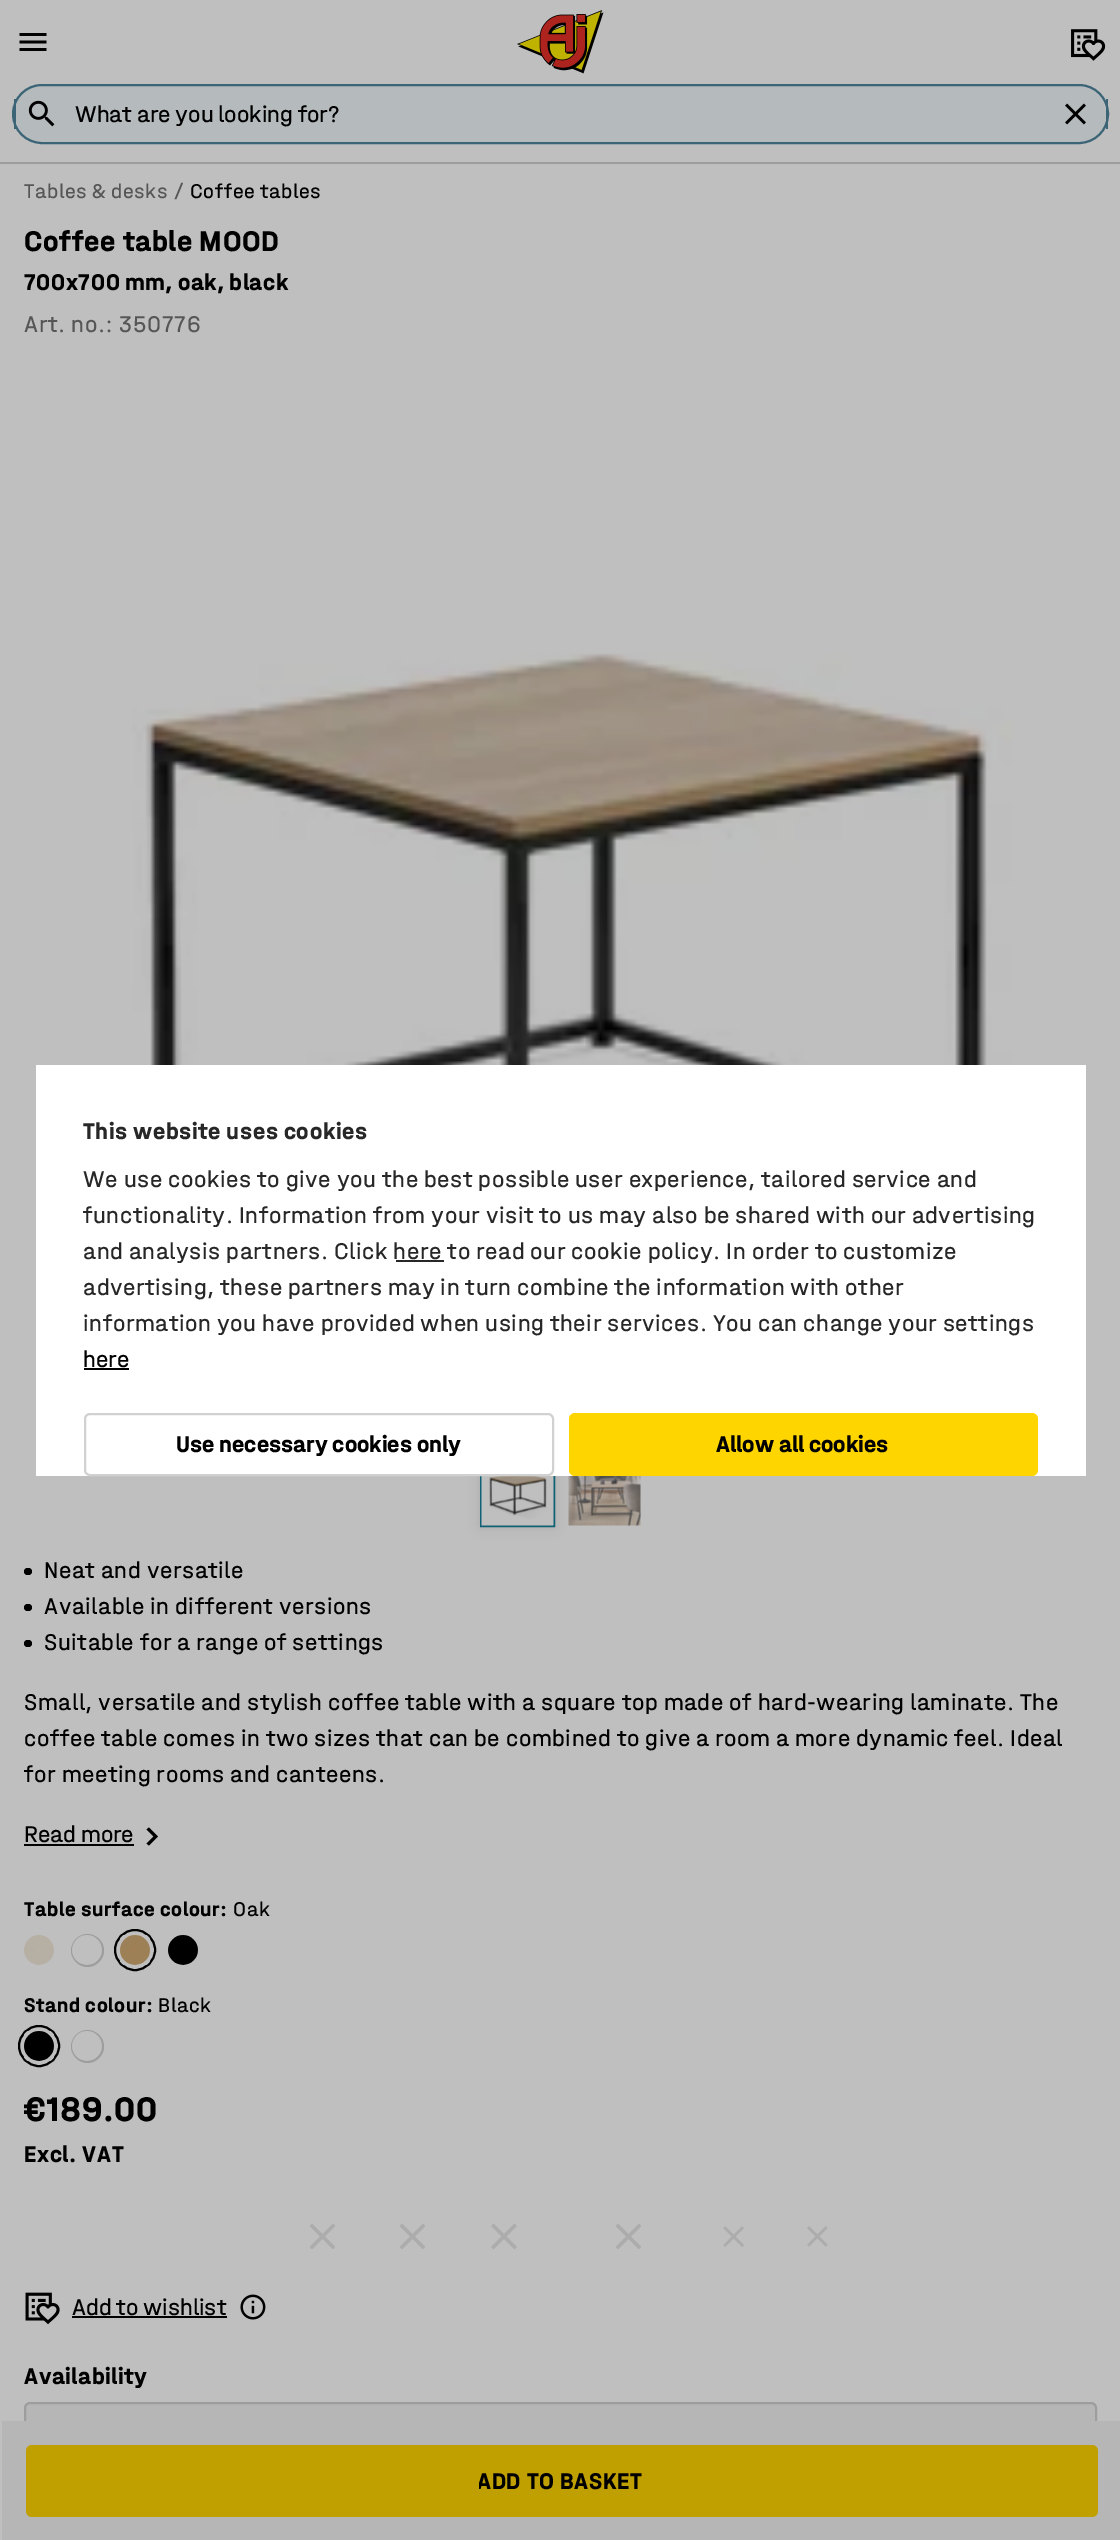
%!PS
<< /PageSize [1120 2540] /PageUsesTransparency true >> setpagedevice
/alpha { dup .setfillconstantalpha .setstrokeconstantalpha } def
/roundrect { 5 dict begin { /r /h /w /y /x } { exch def } forall
  x r add y moveto x w add y 2 copy h add r arct x w add y h add x 1 index r arct
  x y h add x y r arct x y 2 copy exch w add exch r arct closepath end } def
/shadow { 12 dict begin { /a /b /q /h /w /y /x } { exch def } forall gsave /was 0 def
  9 -2 -9 { dup b mul 4 div /e exch def 1 sub .425 mul 2.718 exch exp 1 add a .99 .min exch div /now exch def
    1 1 now sub 1 was sub div sub alpha /was now def
    w h .min e 2 mul add 0 gt { x e sub y e sub w e 2 mul add h e 2 mul add
      q e add b .6 mul add w h .min 2 div e add .min 0 .max roundrect fill } if } for grestore end } def
/picture { 5 dict begin { /h /w /y /x /name } { exch def } forall
  gsave x y translate w h scale
  w h 8 [w 0 0 h 0 0] name (r) file false 3 colorimage grestore end } def
0 .pushpdf14devicefilter
0 2540 translate 1 -1 scale
4 setmiterlimit
0.749 setgray
0 0 1120 2540 rectfill
0.616 setgray
0 162 1120 2 rectfill
(img1.rgb) 19 33 28 18 picture
(img2.rgb) 517 10 87 64 picture
(img3.rgb) 1071 29 35 32 picture
0.71 0.729 0.741 setrgbcolor
newpath 42 86 moveto 1078 86 lineto 1093 86 1106 98 1106 114 curveto 1106 130 1093 142 1078 142 curveto 42 142 lineto 27 142 15 130 15 114 curveto 15 98 27 86 42 86 curveto closepath fill
0.231 0.396 0.467 setrgbcolor
2 setlinewidth
13 85 1095 58 29 roundrect stroke
(img4.rgb) 28 100 27 27 picture
1106 99 2 30 rectfill
14 99 2 30 rectfill
/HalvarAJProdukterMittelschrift-Regular [24 0 0 -24 0 0] selectfont
0 setgray
75 122 moveto (What are you looking for?) show
(img5.rgb) 1065 103 21 22 picture
/HalvarAJProdukterMittelschrift-Regular [21 0 0 -21 0 0] selectfont
0.337 setgray
24 198 moveto 0.6 0 (Tables & desks /) ashow
0 setgray
190 198 moveto 0.6 0 (Coffee tables) ashow
/HalvarAJProdukterMittelschrift-Bold [30 0 0 -30 0 0] selectfont
24 251 moveto 0.6 0 (Coffee table MOOD) ashow
/HalvarAJProdukterMittelschrift-Bold [24 0 0 -24 0 0] selectfont
24 290 moveto -1 0 32 0.6 0 (700x700 mm, oak, black) awidthshow
/HalvarAJProdukterMittelschrift-Regular [24 0 0 -24 0 0] selectfont
0.337 setgray
24 332 moveto 0.6 0 (Art. no.: 350776) ashow
(img6.rgb) 132 653 881 412 picture
0 setgray
480 1452 75 75 0 6 0.1 shadow
0.067 0.38 0.463 setrgbcolor
481 1453 73 73 rectstroke
(img7.rgb) 481 1476 73 50 picture
(img8.rgb) 568 1476 73 50 picture
0 setgray
24 1568 8 7 3.5 roundrect fill
44 1578 moveto 0.6 0 (Neat and versatile) ashow
24 1604 8 7 3.5 roundrect fill
44 1614 moveto 0.6 0 (Available in different versions) ashow
24 1640 8 7 3.5 roundrect fill
44 1650 moveto 0.6 0 (Suitable for a range of settings) ashow
24 1710 moveto 0.6 0 (Small, versatile and stylish coffee table with a square top made of hard-wearing laminate. The) ashow
24 1746 moveto 0.6 0 (coffee table comes in two sizes that can be combined to give a room a more dynamic feel. Ideal) ashow
24 1782 moveto 0.6 0 (for meeting rooms and canteens.) ashow
24 1842 moveto (Read more) show
24 1844 110 2 rectfill
newpath 146.5 1843.5 moveto 153.5 1836.5 lineto 146.5 1829.5 lineto 149 1827.5 lineto 158 1836.5 lineto 149 1845.5 lineto closepath fill
/HalvarAJProdukterMittelschrift-Bold [21 0 0 -21 0 0] selectfont
24 1916 moveto 0.6 0 (Table surface colour:) ashow
/HalvarAJProdukterMittelschrift-Regular [21 0 0 -21 0 0] selectfont
233 1916 moveto 0.6 0 (Oak) ashow
(img9.rgb) 24 1935 30 30 picture
0.616 setgray
newpath 87.5 1950.5 16.5 0 360 arc closepath fill
(img10.rgb) 72 1935 30 30 picture
0 setgray
newpath 135 1950 20 0 360 arc closepath stroke
(img11.rgb) 120 1935 30 30 picture
(img12.rgb) 168 1935 30 30 picture
/HalvarAJProdukterMittelschrift-Bold [21 0 0 -21 0 0] selectfont
24 2012 moveto 0.6 0 (Stand colour:) ashow
/HalvarAJProdukterMittelschrift-Regular [21 0 0 -21 0 0] selectfont
158 2012 moveto 0.6 0 (Black) ashow
newpath 39 2046 20 0 360 arc closepath stroke
(img13.rgb) 24 2031 30 30 picture
0.616 setgray
newpath 87.5 2046.5 16.5 0 360 arc closepath fill
(img10.rgb) 72 2031 30 30 picture
/HalvarAJProdukterMittelschrift-Bold [36 0 0 -36 0 0] selectfont
0 setgray
24 2121 moveto 0.6 0 (€189.00) ashow
/HalvarAJProdukterMittelschrift-Bold [24 0 0 -24 0 0] selectfont
24 2162 moveto 0.6 0 (Excl. VAT) ashow
(img14.rgb) 310 2224 25 25 picture
(img14.rgb) 400 2224 25 25 picture
(img15.rgb) 491 2223 26 27 picture
(img14.rgb) 616 2224 25 25 picture
(img16.rgb) 723 2226 21 21 picture
(img17.rgb) 807 2226 21 21 picture
(img18.rgb) 25 2292 35 33 picture
/HalvarAJProdukterMittelschrift-Regular [24 0 0 -24 0 0] selectfont
72 2315 moveto (Add to wishlist) show
72 2316 155 2 rectfill
(img19.rgb) 240 2294 26 26 picture
/HalvarAJProdukterMittelschrift-Bold [24 0 0 -24 0 0] selectfont
24 2384 moveto 0.6 0 (Availability) ashow
0.714 setgray
25 2403 1071 91 5 roundrect gsave fill grestore
0.616 setgray
stroke
0.714 setgray
2 2421 1118 119 rectfill
0.749 0.627 0 setrgbcolor
26 2445 1072 72 6 roundrect fill
gsave
479 2466 165 30 rectclip
0 setgray
477 2489 moveto 0.6 0 (ADD TO BASKET) ashow
grestore
1 setgray
36 1065 1050 411 rectfill
0.153 setgray
83 1139 moveto 0.6 0 (This website uses cookies) ashow
/HalvarAJProdukterMittelschrift-Regular [24 0 0 -24 0 0] selectfont
83 1187 moveto 0.6 0 (We use cookies to give you the best possible user experience, tailored service and) ashow
83 1223 moveto 0.6 0 (functionality. Information from your visit to us may also be shared with our advertising) ashow
83 1259 moveto 0.6 0 (and analysis partners. Click here to read our cookie policy. In order to customize) ashow
396 1260 48 2 rectfill
83 1295 moveto 0.6 0 (advertising, these partners may in turn combine the information with other) ashow
83 1331 moveto 0.6 0 (information you have provided when using their services. You can change your settings) ashow
0 setgray
83 1367 moveto (here) show
84 1368 45 2 rectfill
0.82 setgray
85 1414 468 61 5 roundrect stroke
/HalvarAJProdukterMittelschrift-Bold [24 0 0 -24 0 0] selectfont
0 setgray
176 1452 moveto (Use necessary cookies only) show
1 0.835 0 setrgbcolor
569 1413 469 63 6 roundrect fill
0 setgray
716 1452 moveto (Allow all cookies) show
.poppdf14devicefilter showpage
